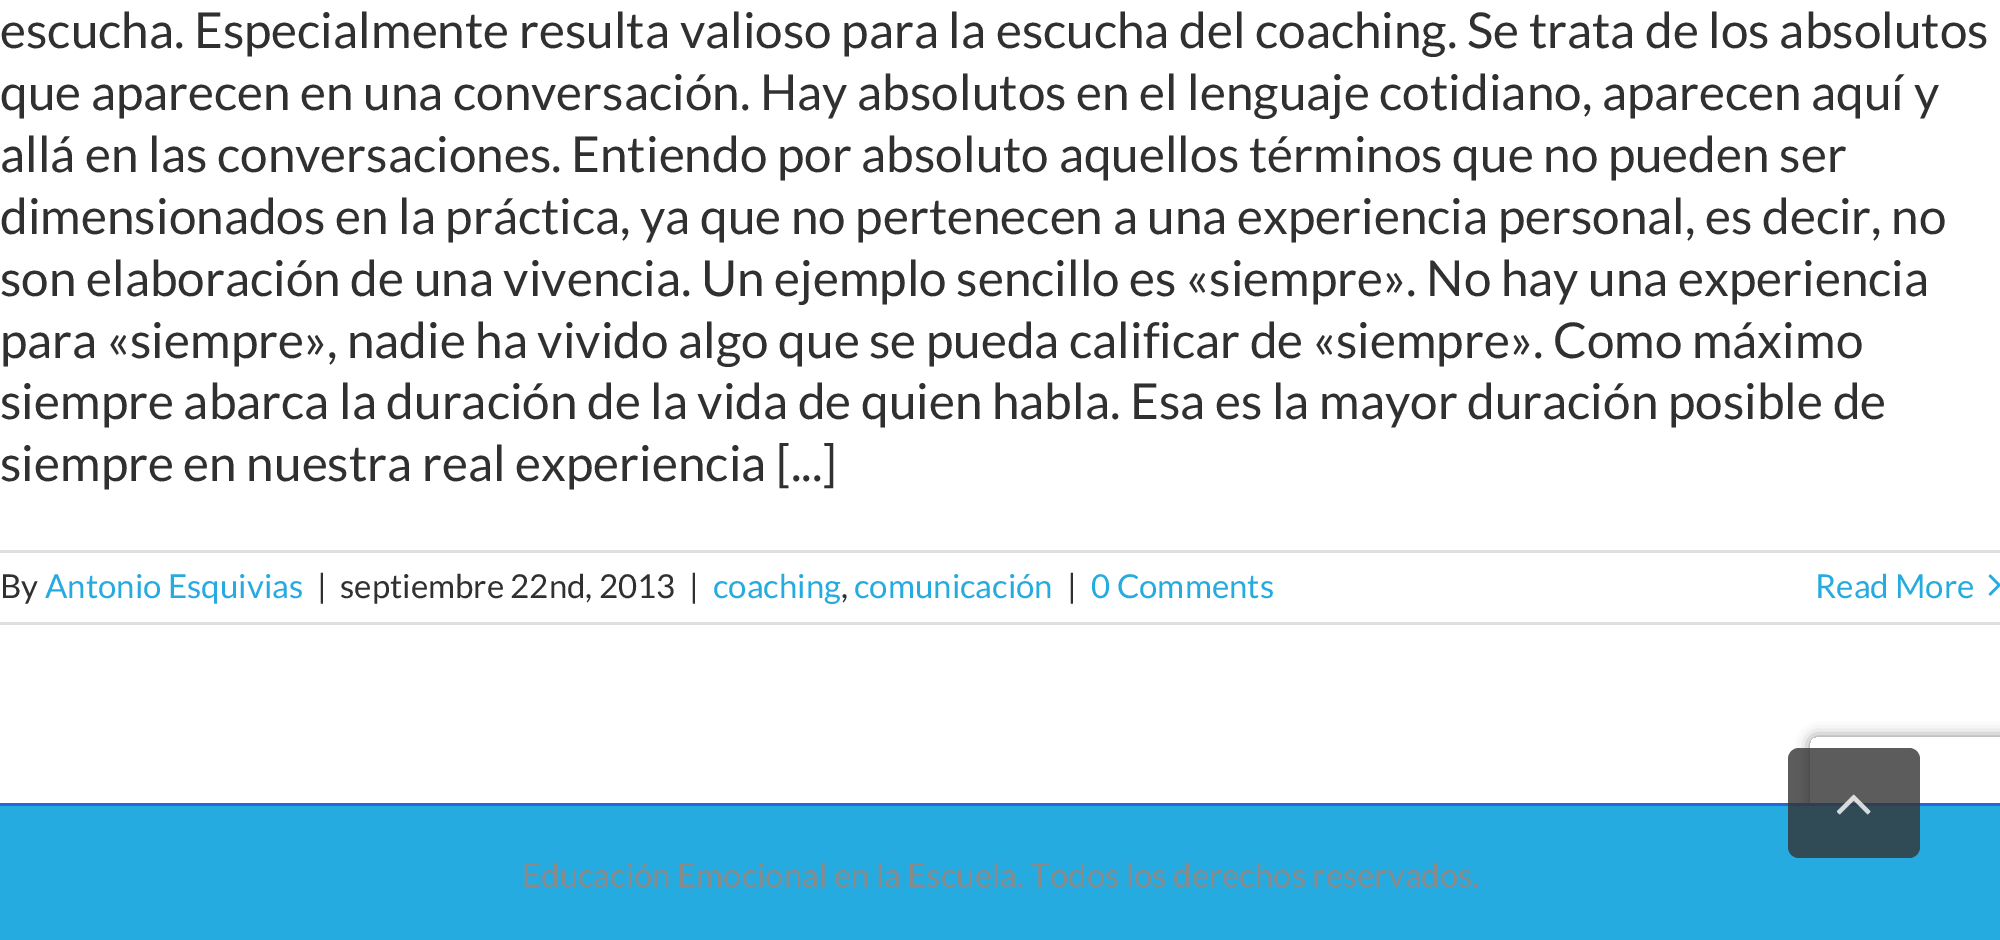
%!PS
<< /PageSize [2000 940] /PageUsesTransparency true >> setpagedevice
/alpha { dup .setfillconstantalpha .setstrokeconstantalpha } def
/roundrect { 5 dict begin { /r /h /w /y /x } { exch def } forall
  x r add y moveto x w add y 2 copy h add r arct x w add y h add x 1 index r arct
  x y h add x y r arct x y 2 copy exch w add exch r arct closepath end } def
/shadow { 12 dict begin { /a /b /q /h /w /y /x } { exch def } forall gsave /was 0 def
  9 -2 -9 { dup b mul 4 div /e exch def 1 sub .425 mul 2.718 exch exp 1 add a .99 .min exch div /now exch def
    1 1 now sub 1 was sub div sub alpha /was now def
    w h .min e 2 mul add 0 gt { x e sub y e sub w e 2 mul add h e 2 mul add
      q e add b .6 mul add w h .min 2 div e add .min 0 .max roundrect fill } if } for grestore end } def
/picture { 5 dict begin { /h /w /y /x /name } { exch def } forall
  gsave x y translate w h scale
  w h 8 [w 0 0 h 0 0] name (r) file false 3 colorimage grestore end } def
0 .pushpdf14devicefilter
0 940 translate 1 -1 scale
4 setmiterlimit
1 setgray
0 0 2000 940 rectfill
/Lato-Regular [49.5 0 0 -49.5 0 0] selectfont
0.188 setgray
0 48 moveto (escucha. Especialmente resulta valioso para la escucha del coaching. Se trata de los absolutos) show
0 110 moveto (que aparecen en una conversación. Hay absolutos en el lenguaje cotidiano, aparecen aquí y) show
0 172 moveto (allá en las conversaciones. Entiendo por absoluto aquellos términos que no pueden ser) show
0 234 moveto (dimensionados en la práctica, ya que no pertenecen a una experiencia personal, es decir, no) show
0 296 moveto (son elaboración de una vivencia. Un ejemplo sencillo es «siempre». No hay una experiencia) show
0 358 moveto (para «siempre», nadie ha vivido algo que se pueda calificar de «siempre». Como máximo) show
0 419 moveto (siempre abarca la duración de la vida de quien habla. Esa es la mayor duración posible de) show
0 481 moveto (siempre en nuestra real experiencia [...]) show
0.878 0.871 0.871 setrgbcolor
0 550 2000 3 rectfill
0 622 2000 3 rectfill
/Lato-Regular [33 0 0 -33 0 0] selectfont
0.188 setgray
0 598 moveto (By) show
0.149 0.671 0.878 setrgbcolor
45 598 moveto (Antonio Esquivias) show
0.188 setgray
317 598 moveto (|) show
340 598 moveto (septiembre 22nd, 2013) show
689 598 moveto (|) show
0.149 0.671 0.878 setrgbcolor
713 598 moveto (coaching) show
0.188 setgray
841 598 moveto (,) show
0.149 0.671 0.878 setrgbcolor
854 598 moveto (comunicación) show
0.188 setgray
1067 598 moveto (|) show
0.149 0.671 0.878 setrgbcolor
1091 598 moveto (0 Comments) show
1815 598 moveto (Read More) show
(img1.rgb) 1988 574 12 22 picture
gsave
newpath 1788 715 moveto 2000 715 lineto 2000 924 lineto 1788 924 lineto closepath 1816 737 moveto 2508 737 lineto 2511.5 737 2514 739.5 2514 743 curveto 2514 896 lineto 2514 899.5 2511.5 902 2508 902 curveto 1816 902 lineto 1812.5 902 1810 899.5 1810 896 curveto 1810 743 lineto 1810 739.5 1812.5 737 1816 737 curveto closepath eoclip newpath
0.502 setgray
1810 737 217 165 6 7 1 shadow
grestore
0 806 2000 134 rectfill
0.149 0.392 0.878 setrgbcolor
0 803 2000 3 rectfill
0.549 0.537 0.537 setrgbcolor
522 887 moveto (Educación Emocional en la Escuela. Todos los derechos reservados.) show
0.8 alpha
0.2 setgray
1788 748 132 110 11 roundrect fill
1 alpha
(img2.rgb) 1836 794 35 21 picture
.poppdf14devicefilter showpage
